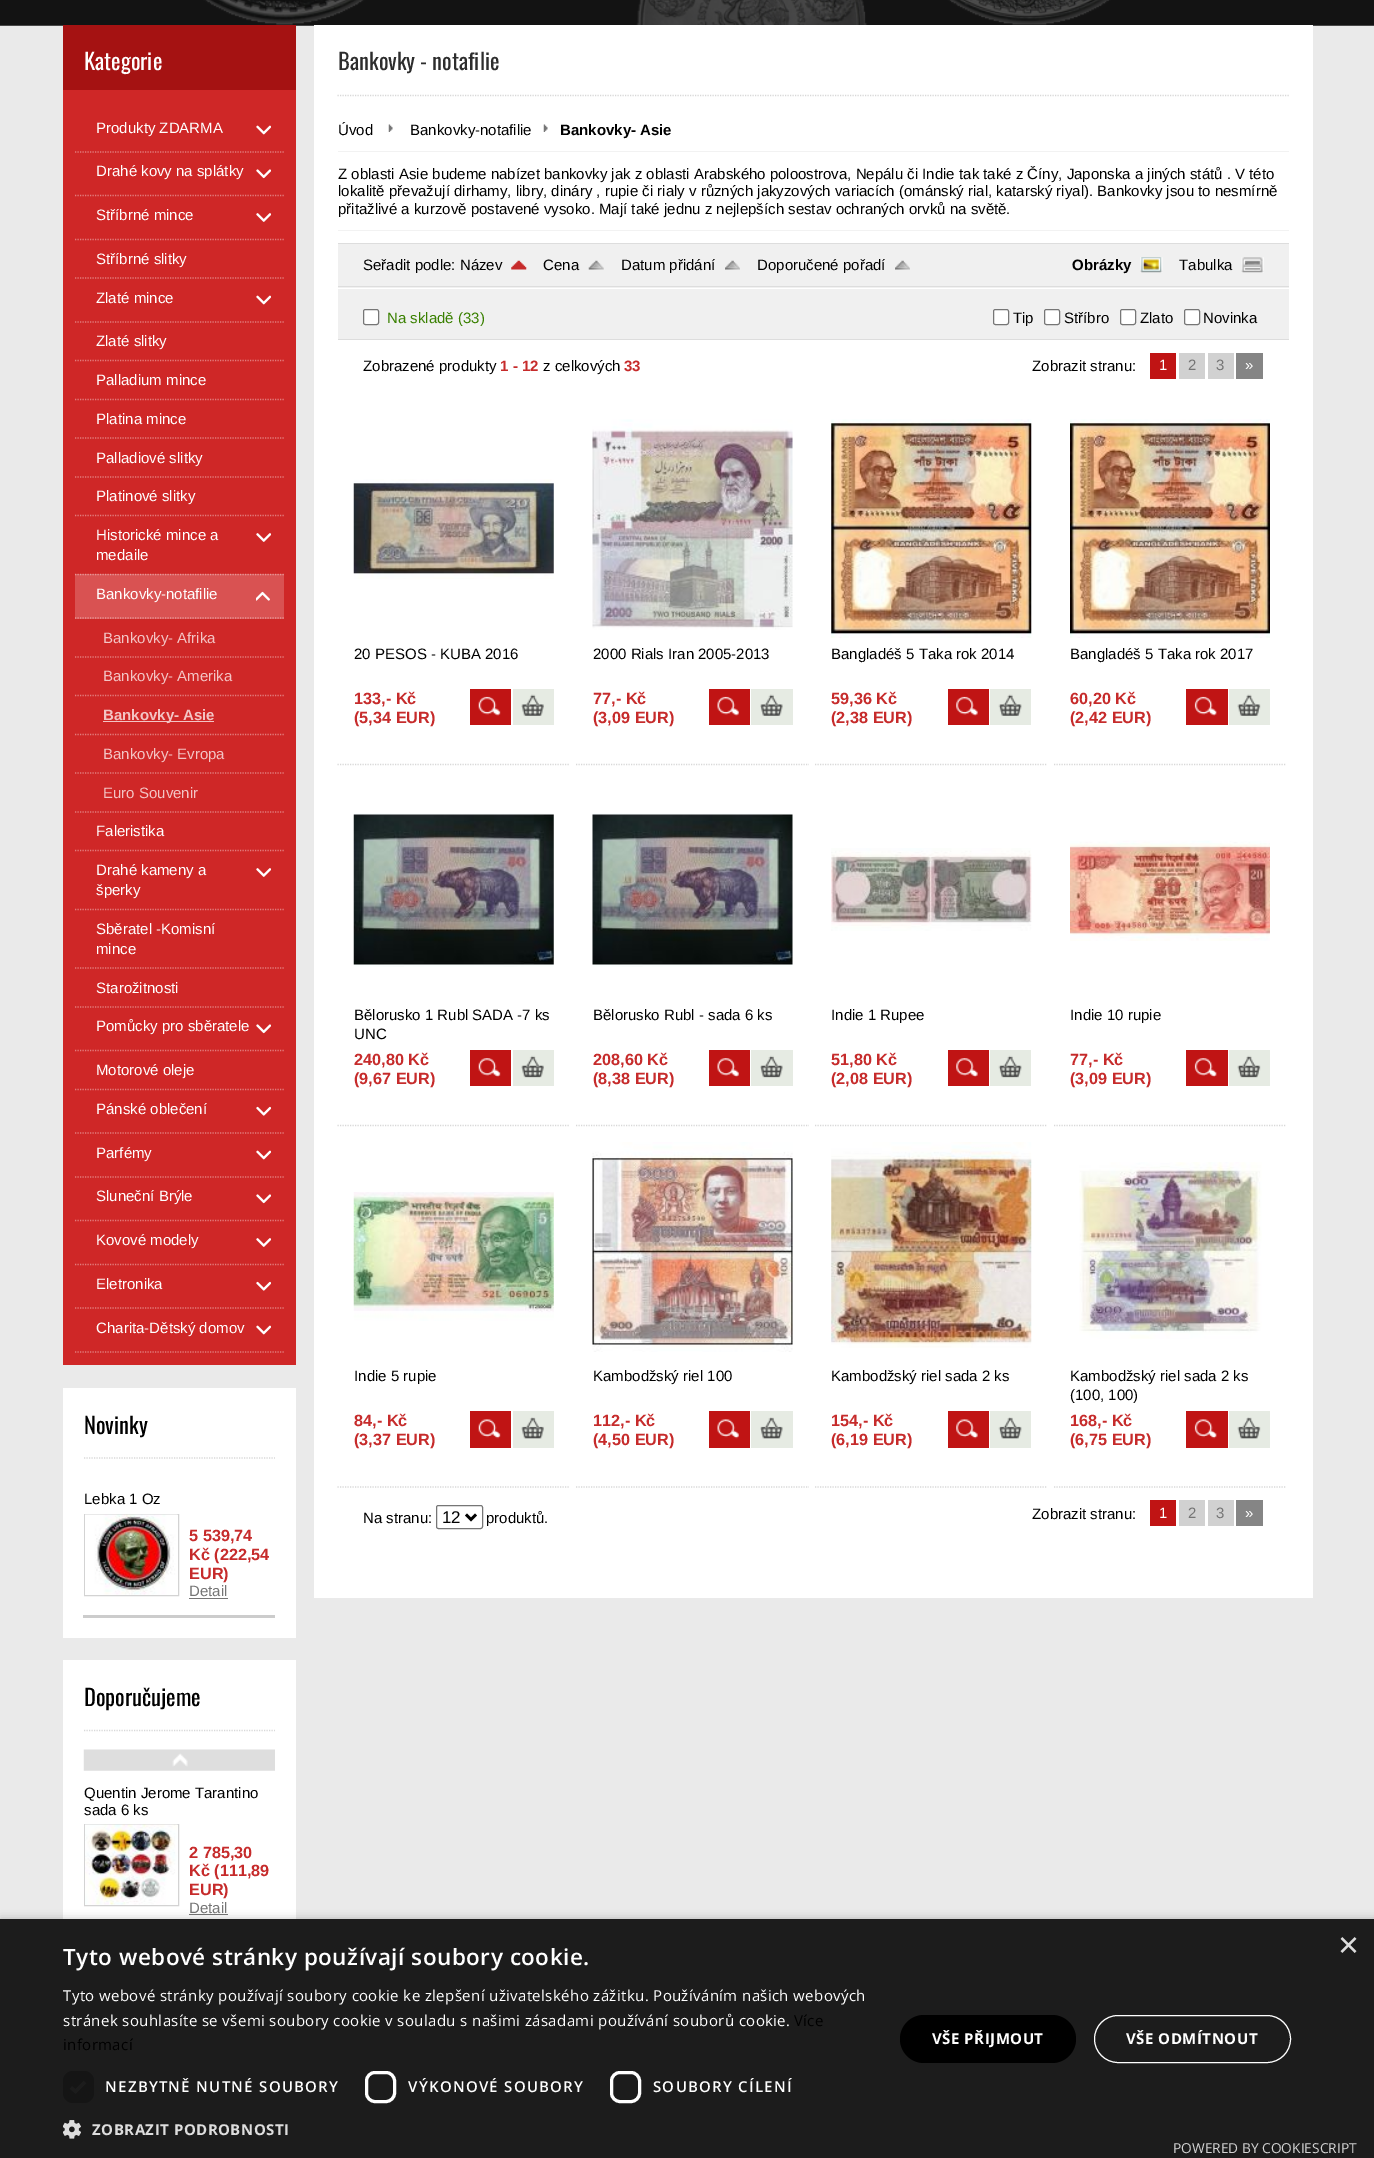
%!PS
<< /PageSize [1374 2158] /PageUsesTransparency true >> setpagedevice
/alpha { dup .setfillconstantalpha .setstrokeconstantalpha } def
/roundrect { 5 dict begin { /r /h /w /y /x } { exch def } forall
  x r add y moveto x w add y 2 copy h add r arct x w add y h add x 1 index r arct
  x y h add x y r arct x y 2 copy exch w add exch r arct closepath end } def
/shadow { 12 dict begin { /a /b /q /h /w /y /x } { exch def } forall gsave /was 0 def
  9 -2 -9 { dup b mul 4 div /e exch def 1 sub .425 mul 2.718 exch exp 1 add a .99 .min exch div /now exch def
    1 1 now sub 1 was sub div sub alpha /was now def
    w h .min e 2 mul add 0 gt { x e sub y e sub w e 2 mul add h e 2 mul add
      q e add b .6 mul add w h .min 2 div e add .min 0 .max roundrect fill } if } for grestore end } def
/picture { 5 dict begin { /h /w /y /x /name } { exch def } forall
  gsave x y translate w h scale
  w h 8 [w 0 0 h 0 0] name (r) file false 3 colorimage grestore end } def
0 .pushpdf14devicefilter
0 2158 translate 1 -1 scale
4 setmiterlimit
0.918 setgray
0 0 1374 2158 rectfill
(img1.rgb) 0 0 1374 26 picture
0.812 0.153 0.153 setrgbcolor
63 90 233 1275 rectfill
0.647 0.071 0.071 setrgbcolor
63 25 233 65 rectfill
/Oswald-Regular [22.5 0 0 -22.5 0 0] selectfont
1 setgray
84 70 moveto (Kategorie) show
0.886 0.49 0.49 setrgbcolor
1.2 setlinewidth
[1.25 1.25] 0 setdash
newpath 75 152 moveto 284 152 lineto stroke
/LiberationSans-Regular [15 0 0 -15 0 0] selectfont
1 setgray
96 133 moveto (Produkty ZDARMA) show
(img2.rgb) 256 125 15 10 picture
0.886 0.49 0.49 setrgbcolor
newpath 75 195.5 moveto 284 195.5 lineto stroke
1 setgray
96 176 moveto (Drahé kovy na splátky) show
(img3.rgb) 256 169 15 10 picture
0.886 0.49 0.49 setrgbcolor
newpath 75 239.5 moveto 284 239.5 lineto stroke
1 setgray
96 220 moveto (Stříbrné mince) show
(img4.rgb) 256 213 15 9 picture
0.886 0.49 0.49 setrgbcolor
newpath 75 278 moveto 284 278 lineto stroke
1 setgray
96 264 moveto (Stříbrné slitky) show
0.886 0.49 0.49 setrgbcolor
newpath 75 322 moveto 284 322 lineto stroke
1 setgray
96 303 moveto (Zlaté mince) show
(img2.rgb) 256 295 15 10 picture
0.886 0.49 0.49 setrgbcolor
newpath 75 360.5 moveto 284 360.5 lineto stroke
1 setgray
96 346 moveto (Zlaté slitky) show
0.886 0.49 0.49 setrgbcolor
newpath 75 399.5 moveto 284 399.5 lineto stroke
1 setgray
96 385 moveto (Palladium mince) show
0.886 0.49 0.49 setrgbcolor
newpath 75 438 moveto 284 438 lineto stroke
1 setgray
96 424 moveto (Platina mince) show
0.886 0.49 0.49 setrgbcolor
newpath 75 477 moveto 284 477 lineto stroke
1 setgray
96 463 moveto (Palladiové slitky) show
0.886 0.49 0.49 setrgbcolor
newpath 75 515.5 moveto 284 515.5 lineto stroke
1 setgray
96 501 moveto (Platinové slitky) show
0.886 0.49 0.49 setrgbcolor
newpath 75 574.5 moveto 284 574.5 lineto stroke
1 setgray
96 540 moveto (Historické mince a) show
96 560 moveto (medaile) show
(img4.rgb) 256 533 15 9 picture
0.2 alpha
75 574 209 45 rectfill
1 alpha
0.91 0.592 0.592 setrgbcolor
newpath 75 618 moveto 284 618 lineto stroke
1 setgray
96 599 moveto (Bankovky-notafilie) show
(img5.rgb) 256 591 14 10 picture
0.886 0.49 0.49 setrgbcolor
newpath 75 657 moveto 284 657 lineto stroke
0.953 0.769 0.769 setrgbcolor
103 643 moveto (Bankovky- Afrika) show
0.886 0.49 0.49 setrgbcolor
newpath 75 695.5 moveto 284 695.5 lineto stroke
0.953 0.769 0.769 setrgbcolor
103 681 moveto (Bankovky- Amerika) show
0.886 0.49 0.49 setrgbcolor
newpath 75 734.5 moveto 284 734.5 lineto stroke
0.953 0.769 0.769 setrgbcolor
103 721 111 1 rectfill
/LiberationSans-Bold [15 0 0 -15 0 0] selectfont
103 720 moveto (Bankovky- Asie) show
0.886 0.49 0.49 setrgbcolor
newpath 75 773 moveto 284 773 lineto stroke
/LiberationSans-Regular [15 0 0 -15 0 0] selectfont
0.953 0.769 0.769 setrgbcolor
103 759 moveto (Bankovky- Evropa) show
0.886 0.49 0.49 setrgbcolor
newpath 75 812 moveto 284 812 lineto stroke
0.953 0.769 0.769 setrgbcolor
103 798 moveto (Euro Souvenir) show
0.886 0.49 0.49 setrgbcolor
newpath 75 850.5 moveto 284 850.5 lineto stroke
1 setgray
96 836 moveto (Faleristika) show
0.886 0.49 0.49 setrgbcolor
newpath 75 909.5 moveto 284 909.5 lineto stroke
1 setgray
96 875 moveto (Drahé kameny a) show
96 895 moveto (šperky) show
(img4.rgb) 256 868 15 9 picture
0.886 0.49 0.49 setrgbcolor
newpath 75 968 moveto 284 968 lineto stroke
1 setgray
96 934 moveto (Sběratel -Komisní) show
96 954 moveto (mince) show
0.886 0.49 0.49 setrgbcolor
newpath 75 1007 moveto 284 1007 lineto stroke
1 setgray
96 993 moveto (Starožitnosti) show
0.886 0.49 0.49 setrgbcolor
newpath 75 1050.5 moveto 284 1050.5 lineto stroke
1 setgray
96 1031 moveto (Pomůcky pro sběratele) show
(img3.rgb) 256 1024 15 10 picture
0.886 0.49 0.49 setrgbcolor
newpath 75 1089.5 moveto 284 1089.5 lineto stroke
1 setgray
96 1075 moveto (Motorové oleje) show
0.886 0.49 0.49 setrgbcolor
newpath 75 1133 moveto 284 1133 lineto stroke
1 setgray
96 1114 moveto (Pánské oblečení) show
(img6.rgb) 256 1106 15 10 picture
0.886 0.49 0.49 setrgbcolor
newpath 75 1177 moveto 284 1177 lineto stroke
1 setgray
96 1158 moveto (Parfémy) show
(img2.rgb) 256 1150 15 10 picture
0.886 0.49 0.49 setrgbcolor
newpath 75 1220.5 moveto 284 1220.5 lineto stroke
1 setgray
96 1201 moveto (Sluneční Brýle) show
(img3.rgb) 256 1194 15 10 picture
0.886 0.49 0.49 setrgbcolor
newpath 75 1264.5 moveto 284 1264.5 lineto stroke
1 setgray
96 1245 moveto (Kovové modely) show
(img4.rgb) 256 1238 15 9 picture
0.886 0.49 0.49 setrgbcolor
newpath 75 1308 moveto 284 1308 lineto stroke
1 setgray
96 1289 moveto (Eletronika) show
(img6.rgb) 256 1281 15 10 picture
0.886 0.49 0.49 setrgbcolor
newpath 75 1352 moveto 284 1352 lineto stroke
1 setgray
96 1333 moveto (Charita-Dětský domov) show
(img2.rgb) 256 1325 15 10 picture
63 1388 233 250 rectfill
0.847 setgray
newpath 84 1458 moveto 275 1458 lineto stroke
/Oswald-Regular [22.5 0 0 -22.5 0 0] selectfont
0 setgray
84 1434 moveto (Novinky) show
0.8 setgray
83 1615 192 3 rectfill
/LiberationSans-Regular [15 0 0 -15 0 0] selectfont
0 setgray
84 1504 moveto (Lebka 1 Oz) show
0.827 setgray
1 setlinewidth
[] 0 setdash
84.5 1514.5 94 81 rectstroke
(img7.rgb) 85 1514 93 81 picture
/LiberationSans-Bold [16.25 0 0 -16.25 0 0] selectfont
0.776 0.169 0.169 setrgbcolor
189 1541 moveto (5 539,74) show
189 1560 moveto (Kč \(222,54) show
189 1579 moveto (EUR\)) show
/LiberationSans-Regular [15 0 0 -15 0 0] selectfont
0.459 setgray
189 1596 moveto (Detail) show
189 1598 39 1 rectfill
1 setgray
63 1660 233 259 rectfill
0.847 setgray
1.2 setlinewidth
[1.25 1.25] 0 setdash
newpath 84 1730.5 moveto 275 1730.5 lineto stroke
/Oswald-Regular [22.5 0 0 -22.5 0 0] selectfont
0 setgray
84 1706 moveto (Doporučujeme) show
(img8.rgb) 83 1749 192 22 picture
/LiberationSans-Regular [15 0 0 -15 0 0] selectfont
84 1798 moveto (Quentin Jerome Tarantino) show
84 1815 moveto (sada 6 ks) show
0.827 setgray
1 setlinewidth
[] 0 setdash
84.5 1824.5 94 81 rectstroke
(img9.rgb) 85 1824 93 81 picture
/LiberationSans-Bold [16.25 0 0 -16.25 0 0] selectfont
0.776 0.169 0.169 setrgbcolor
189 1858 moveto (2 785,30) show
189 1876 moveto (Kč \(111,89) show
189 1895 moveto (EUR\)) show
/LiberationSans-Regular [15 0 0 -15 0 0] selectfont
0.459 setgray
189 1913 moveto (Detail) show
189 1914 39 1 rectfill
1 setgray
314 25 999 1573 rectfill
0.847 setgray
1.2 setlinewidth
[1.25 1.25] 0 setdash
newpath 337.5 95.5 moveto 1289 95.5 lineto stroke
/Oswald-Regular [22.5 0 0 -22.5 0 0] selectfont
0.176 setgray
338 70 moveto (Bankovky - notafilie) show
0.949 setgray
338 151 951 1 rectfill
/LiberationSans-Regular [15 0 0 -15 0 0] selectfont
0 setgray
338 135 moveto (Úvod) show
(img10.rgb) 388 124 5 8 picture
410 135 moveto (Bankovky-notafilie) show
(img10.rgb) 543 124 5 8 picture
/LiberationSans-Bold [15 0 0 -15 0 0] selectfont
560 135 moveto (Bankovky- Asie) show
0.949 setgray
338 230 951 1 rectfill
/LiberationSans-Regular [15 0 0 -15 0 0] selectfont
0 setgray
338 179 moveto (Z oblasti Asie budeme nabízet bankovky jak z oblasti Arabského poloostrova, Nepálu či Indie tak také z Číny, Japonska a jiných států . V této) show
338 196 moveto (lokalitě převažují dirhamy, libry, dináry , rupie či rialy v různých jakyzových variacích \(ománský rial, katarský riyal\). Bankovky jsou to nesmírně) show
338 214 moveto (přitažlivé a kurzově postavené vysoko. Mají také jednu z nejlepších sestav ochraných orvků na světě.) show
0.941 setgray
338 244 951 95 rectfill
0.867 setgray
338 243 951 1 rectfill
338 339 951 1 rectfill
338 286 951 1 rectfill
0 setgray
363 270 moveto (Seřadit podle: Název) show
(img11.rgb) 511 260 16 10 picture
543 270 moveto (Cena) show
(img12.rgb) 588 260 16 10 picture
621 270 moveto (Datum přidání) show
(img13.rgb) 725 260 15 10 picture
757 270 moveto (Doporučené pořadí) show
(img14.rgb) 895 260 15 10 picture
/LiberationSans-Bold [15 0 0 -15 0 0] selectfont
1072 270 moveto (Obrázky) show
(img15.rgb) 1140 257 23 16 picture
/LiberationSans-Regular [15 0 0 -15 0 0] selectfont
1179 270 moveto (Tabulka) show
(img16.rgb) 1241 257 23 16 picture
1 setgray
338 288 951 1 rectfill
363.5 309.5 15 15 2 roundrect gsave fill grestore
0.463 setgray
1 setlinewidth
[] 0 setdash
stroke
0.224 0.502 0 setrgbcolor
387 323 moveto (Na skladě \(33\)) show
1 setgray
993.5 309.5 15 15 2 roundrect gsave fill grestore
0.463 setgray
stroke
0 setgray
1013 323 moveto (Tip) show
1 setgray
1044.5 309.5 15 15 2 roundrect gsave fill grestore
0.463 setgray
stroke
0 setgray
1064 323 moveto (Stříbro) show
1 setgray
1120.5 309.5 15 15 2 roundrect gsave fill grestore
0.463 setgray
stroke
0 setgray
1140 323 moveto (Zlato) show
1 setgray
1184.5 309.5 15 15 2 roundrect gsave fill grestore
0.463 setgray
stroke
0 setgray
1203 323 moveto (Novinka) show
363 371 moveto (Zobrazené produkty) show
/LiberationSans-Bold [15 0 0 -15 0 0] selectfont
0.776 0.169 0.169 setrgbcolor
500 371 moveto (1 - 12) show
/LiberationSans-Regular [15 0 0 -15 0 0] selectfont
0 setgray
543 371 moveto (z celkových) show
/LiberationSans-Bold [15 0 0 -15 0 0] selectfont
0.776 0.169 0.169 setrgbcolor
624 371 moveto (33) show
/LiberationSans-Regular [15 0 0 -15 0 0] selectfont
0 setgray
1032 371 moveto (Zobrazit stranu:) show
0.753 0.078 0.078 setrgbcolor
1150 353 26 26 rectfill
1 setgray
1159 370 moveto (1) show
0.82 setgray
1179 353 26 26 rectfill
0.459 setgray
1188 370 moveto (2) show
0.82 setgray
1208 353 26 26 rectfill
0.459 setgray
1216 370 moveto (3) show
0.522 setgray
1236 353 27 26 rectfill
1 setgray
1245 370 moveto (») show
0.847 setgray
1.2 setlinewidth
[1.25 1.25] 0 setdash
newpath 337.5 764.5 moveto 570 764.5 lineto stroke
(img17.rgb) 353 479 201 100 picture
0 setgray
354 659 moveto (20 PESOS - KUBA 2016) show
/LiberationSans-Bold [16.25 0 0 -16.25 0 0] selectfont
0.776 0.169 0.169 setrgbcolor
354 704 moveto (133,- Kč) show
354 723 moveto (\(5,34 EUR\)) show
0.753 0.078 0.078 setrgbcolor
470 689 41 36 rectfill
(img18.rgb) 478 696 23 20 picture
0.902 0.922 0.89 setrgbcolor
513 689 41 36 rectfill
(img19.rgb) 521 694 23 22 picture
0.847 setgray
newpath 576 764.5 moveto 809 764.5 lineto stroke
(img20.rgb) 592 419 201 211 picture
/LiberationSans-Regular [15 0 0 -15 0 0] selectfont
0 setgray
593 659 moveto (2000 Rials Iran 2005-2013) show
/LiberationSans-Bold [16.25 0 0 -16.25 0 0] selectfont
0.776 0.169 0.169 setrgbcolor
593 704 moveto (77,- Kč) show
593 723 moveto (\(3,09 EUR\)) show
0.753 0.078 0.078 setrgbcolor
709 689 41 36 rectfill
(img21.rgb) 717 696 22 20 picture
0.902 0.922 0.89 setrgbcolor
751 689 42 36 rectfill
(img22.rgb) 760 694 23 22 picture
0.847 setgray
newpath 815 764.5 moveto 1047.5 764.5 lineto stroke
(img23.rgb) 831 419 201 219 picture
/LiberationSans-Regular [15 0 0 -15 0 0] selectfont
0 setgray
831 659 moveto (Bangladéš 5 Taka rok 2014) show
/LiberationSans-Bold [16.25 0 0 -16.25 0 0] selectfont
0.776 0.169 0.169 setrgbcolor
831 704 moveto (59,36 Kč) show
831 723 moveto (\(2,38 EUR\)) show
0.753 0.078 0.078 setrgbcolor
948 689 41 36 rectfill
(img24.rgb) 956 696 22 20 picture
0.902 0.922 0.89 setrgbcolor
990 689 41 36 rectfill
(img25.rgb) 998 694 24 22 picture
0.847 setgray
newpath 1054 764.5 moveto 1286 764.5 lineto stroke
(img26.rgb) 1070 419 200 219 picture
/LiberationSans-Regular [15 0 0 -15 0 0] selectfont
0 setgray
1070 659 moveto (Bangladéš 5 Taka rok 2017) show
/LiberationSans-Bold [16.25 0 0 -16.25 0 0] selectfont
0.776 0.169 0.169 setrgbcolor
1070 704 moveto (60,20 Kč) show
1070 723 moveto (\(2,42 EUR\)) show
0.753 0.078 0.078 setrgbcolor
1186 689 42 36 rectfill
(img27.rgb) 1194 696 23 20 picture
0.902 0.922 0.89 setrgbcolor
1229 689 41 36 rectfill
(img28.rgb) 1237 694 24 22 picture
0.847 setgray
newpath 337.5 1125.5 moveto 570 1125.5 lineto stroke
(img29.rgb) 353 813 201 154 picture
/LiberationSans-Regular [15 0 0 -15 0 0] selectfont
0 setgray
354 1020 moveto (Bělorusko 1 Rubl SADA -7 ks) show
354 1039 moveto (UNC) show
/LiberationSans-Bold [16.25 0 0 -16.25 0 0] selectfont
0.776 0.169 0.169 setrgbcolor
354 1065 moveto (240,80 Kč) show
354 1084 moveto (\(9,67 EUR\)) show
0.753 0.078 0.078 setrgbcolor
470 1050 41 36 rectfill
(img30.rgb) 478 1058 23 19 picture
0.902 0.922 0.89 setrgbcolor
513 1050 41 36 rectfill
(img31.rgb) 521 1055 23 23 picture
0.847 setgray
newpath 576 1125.5 moveto 809 1125.5 lineto stroke
(img32.rgb) 592 813 201 154 picture
/LiberationSans-Regular [15 0 0 -15 0 0] selectfont
0 setgray
593 1020 moveto (Bělorusko Rubl - sada 6 ks) show
/LiberationSans-Bold [16.25 0 0 -16.25 0 0] selectfont
0.776 0.169 0.169 setrgbcolor
593 1065 moveto (208,60 Kč) show
593 1084 moveto (\(8,38 EUR\)) show
0.753 0.078 0.078 setrgbcolor
709 1050 41 36 rectfill
(img33.rgb) 717 1058 22 19 picture
0.902 0.922 0.89 setrgbcolor
751 1050 42 36 rectfill
(img34.rgb) 760 1055 23 23 picture
0.847 setgray
newpath 815 1125.5 moveto 1047.5 1125.5 lineto stroke
(img35.rgb) 831 848 201 83 picture
/LiberationSans-Regular [15 0 0 -15 0 0] selectfont
0 setgray
831 1020 moveto (Indie 1 Rupee) show
/LiberationSans-Bold [16.25 0 0 -16.25 0 0] selectfont
0.776 0.169 0.169 setrgbcolor
831 1065 moveto (51,80 Kč) show
831 1084 moveto (\(2,08 EUR\)) show
0.753 0.078 0.078 setrgbcolor
948 1050 41 36 rectfill
(img36.rgb) 956 1058 22 19 picture
0.902 0.922 0.89 setrgbcolor
990 1050 41 36 rectfill
(img37.rgb) 998 1055 24 23 picture
0.847 setgray
newpath 1054 1125.5 moveto 1286 1125.5 lineto stroke
(img38.rgb) 1070 840 200 101 picture
/LiberationSans-Regular [15 0 0 -15 0 0] selectfont
0 setgray
1070 1020 moveto (Indie 10 rupie) show
/LiberationSans-Bold [16.25 0 0 -16.25 0 0] selectfont
0.776 0.169 0.169 setrgbcolor
1070 1065 moveto (77,- Kč) show
1070 1084 moveto (\(3,09 EUR\)) show
0.753 0.078 0.078 setrgbcolor
1186 1050 42 36 rectfill
(img39.rgb) 1194 1058 23 19 picture
0.902 0.922 0.89 setrgbcolor
1229 1050 41 36 rectfill
(img40.rgb) 1237 1055 24 23 picture
0.847 setgray
newpath 337.5 1487 moveto 570 1487 lineto stroke
(img41.rgb) 353 1192 201 129 picture
/LiberationSans-Regular [15 0 0 -15 0 0] selectfont
0 setgray
354 1381 moveto (Indie 5 rupie) show
/LiberationSans-Bold [16.25 0 0 -16.25 0 0] selectfont
0.776 0.169 0.169 setrgbcolor
354 1426 moveto (84,- Kč) show
354 1445 moveto (\(3,37 EUR\)) show
0.753 0.078 0.078 setrgbcolor
470 1411 41 37 rectfill
(img42.rgb) 478 1419 23 20 picture
0.902 0.922 0.89 setrgbcolor
513 1411 41 37 rectfill
(img43.rgb) 521 1417 23 22 picture
0.847 setgray
newpath 576 1487 moveto 809 1487 lineto stroke
(img44.rgb) 592 1142 201 210 picture
/LiberationSans-Regular [15 0 0 -15 0 0] selectfont
0 setgray
593 1381 moveto (Kambodžský riel 100) show
/LiberationSans-Bold [16.25 0 0 -16.25 0 0] selectfont
0.776 0.169 0.169 setrgbcolor
593 1426 moveto (112,- Kč) show
593 1445 moveto (\(4,50 EUR\)) show
0.753 0.078 0.078 setrgbcolor
709 1411 41 37 rectfill
(img45.rgb) 717 1419 22 20 picture
0.902 0.922 0.89 setrgbcolor
751 1411 42 37 rectfill
(img46.rgb) 760 1417 23 22 picture
0.847 setgray
newpath 815 1487 moveto 1047.5 1487 lineto stroke
(img47.rgb) 831 1142 201 206 picture
/LiberationSans-Regular [15 0 0 -15 0 0] selectfont
0 setgray
831 1381 moveto (Kambodžský riel sada 2 ks) show
/LiberationSans-Bold [16.25 0 0 -16.25 0 0] selectfont
0.776 0.169 0.169 setrgbcolor
831 1426 moveto (154,- Kč) show
831 1445 moveto (\(6,19 EUR\)) show
0.753 0.078 0.078 setrgbcolor
948 1411 41 37 rectfill
(img48.rgb) 956 1419 22 20 picture
0.902 0.922 0.89 setrgbcolor
990 1411 41 37 rectfill
(img49.rgb) 998 1417 24 22 picture
0.847 setgray
newpath 1054 1487 moveto 1286 1487 lineto stroke
(img50.rgb) 1079 1162 183 177 picture
/LiberationSans-Regular [15 0 0 -15 0 0] selectfont
0 setgray
1070 1381 moveto (Kambodžský riel sada 2 ks) show
1070 1400 moveto (\(100, 100\)) show
/LiberationSans-Bold [16.25 0 0 -16.25 0 0] selectfont
0.776 0.169 0.169 setrgbcolor
1070 1426 moveto (168,- Kč) show
1070 1445 moveto (\(6,75 EUR\)) show
0.753 0.078 0.078 setrgbcolor
1186 1411 42 37 rectfill
(img51.rgb) 1194 1419 23 20 picture
0.902 0.922 0.89 setrgbcolor
1229 1411 41 37 rectfill
(img52.rgb) 1237 1417 24 22 picture
/LiberationSans-Regular [15 0 0 -15 0 0] selectfont
0 setgray
363 1523 moveto (Na stranu:) show
0.463 setgray
1 setlinewidth
[] 0 setdash
436.5 1505.5 46 23 2 roundrect stroke
0 setgray
2.5 setlinewidth
newpath 466 1514.5 moveto 471 1519.5 lineto 476 1514.5 lineto stroke
/LiberationSans-Regular [17 0 0 -17 0 0] selectfont
442 1523 moveto (12) show
/LiberationSans-Regular [15 0 0 -15 0 0] selectfont
486 1523 moveto (produktů.) show
1032 1519 moveto (Zobrazit stranu:) show
0.753 0.078 0.078 setrgbcolor
1150 1500 26 26 rectfill
1 setgray
1159 1518 moveto (1) show
0.82 setgray
1179 1500 26 26 rectfill
0.459 setgray
1188 1518 moveto (2) show
0.82 setgray
1208 1500 26 26 rectfill
0.459 setgray
1216 1518 moveto (3) show
0.522 setgray
1236 1500 27 26 rectfill
1 setgray
1245 1518 moveto (») show
0 setgray
1 1921 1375 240 0 5 0.35 shadow
0.11 setgray
0 1919 1374 239 rectfill
/LiberationSans-Regular [36 0 0 -36 0 0] selectfont
0.867 setgray
1338 1957 moveto (×) show
/OpenSans-SemiBold [22.5 0 0 -22.5 0 0] selectfont
1 setgray
63 1965 moveto 0.5 0 (Tyto webové stránky používají soubory cookie.) ashow
/OpenSans-Regular [15 0 0 -15 0 0] selectfont
63 2001 moveto 0.38 0 (Tyto webové stránky používají soubory cookie ke zlepšení uživatelského zážitku. Používáním našich webových) ashow
63 2026 moveto 0.38 0 (stránek souhlasíte se všemi soubory cookie v souladu s našimi zásadami používání souborů cookie.) ashow
0 setgray
794 2026 moveto 0.38 0 (Více) ashow
63 2050 moveto 0.38 0 (informací) ashow
0.082 setgray
63 2071 31 32 10 roundrect fill
0.11 setgray
3.3 setlinewidth
newpath 71 2087.5 moveto 75.5 2091.5 lineto 85 2082 lineto stroke
/OpenSans-SemiBold [15 0 0 -15 0 0] selectfont
1 setgray
105 2092 moveto 1.25 0 (NEZBYTNĚ NUTNÉ SOUBORY) ashow
3 setlinewidth
366.5 2072.5 28 29 8.5 roundrect stroke
408 2092 moveto 1.25 0 (VÝKONOVÉ SOUBORY) ashow
611.5 2072.5 28 29 8.5 roundrect stroke
653 2092 moveto 1.25 0 (SOUBORY CÍLENÍ) ashow
(img53.rgb) 63 2120 18 19 picture
/OpenSans-Bold [15 0 0 -15 0 0] selectfont
0.867 setgray
92 2135 moveto 0.5 0 (ZOBRAZIT PODROBNOSTI) ashow
0 setgray
900 2015 176 48 24 roundrect fill
1 setgray
932 2044 moveto 0.5 0 (VŠE PŘIJMOUT) ashow
1 setlinewidth
1094.5 2015.5 196 47 23.5 roundrect stroke
1126 2044 moveto 0.5 0 (VŠE ODMÍTNOUT) ashow
/OpenSans-Regular [13.75 0 0 -13.75 0 0] selectfont
0.824 setgray
1173 2153 moveto (POWERED BY COOKIESCRIPT) show
.poppdf14devicefilter showpage
